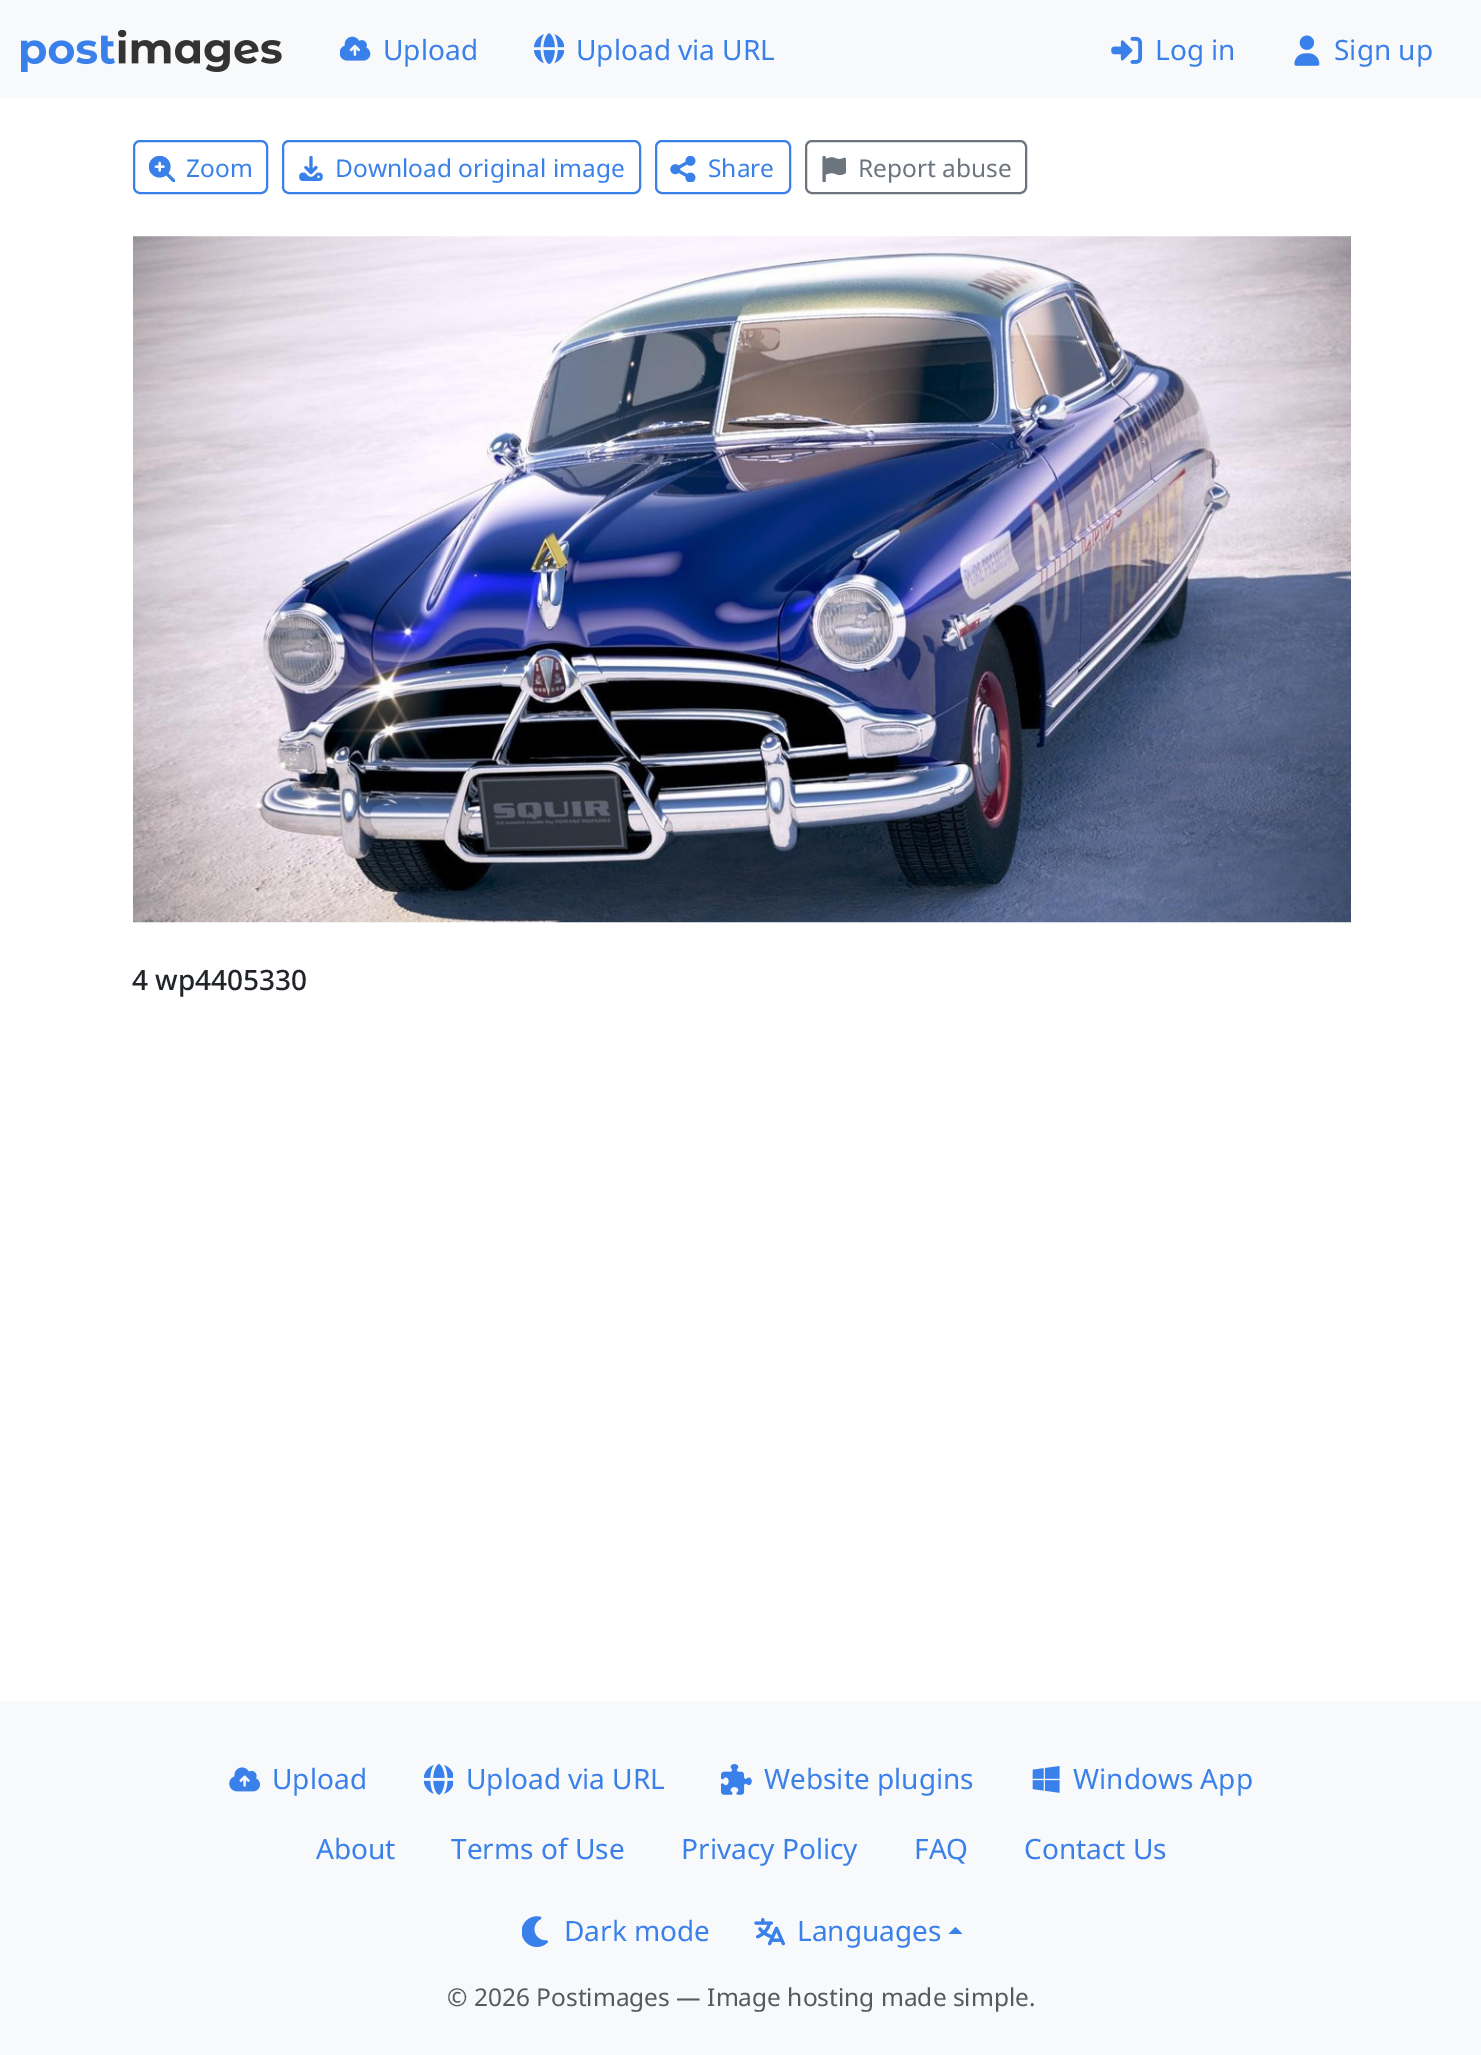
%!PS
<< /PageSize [1481 2055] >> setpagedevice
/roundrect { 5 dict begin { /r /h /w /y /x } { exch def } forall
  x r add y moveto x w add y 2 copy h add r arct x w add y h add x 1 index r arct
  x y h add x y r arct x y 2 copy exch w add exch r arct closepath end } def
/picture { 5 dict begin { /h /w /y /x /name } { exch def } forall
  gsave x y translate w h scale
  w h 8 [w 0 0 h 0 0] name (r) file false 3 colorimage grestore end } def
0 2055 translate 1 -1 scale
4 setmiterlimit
1 setgray
0 0 1481 2055 rectfill
0.973 0.976 0.98 setrgbcolor
0 0 1481 98 rectfill
(img1.rgb) 21 30 261 42 picture
(img2.rgb) 340 36 31 25 picture
/NotoSans-Regular [28 0 0 -28 0 0] selectfont
0.227 0.502 0.918 setrgbcolor
383 60 moveto (Upload) show
(img3.rgb) 534 33 30 31 picture
576 60 moveto (Upload via URL) show
(img4.rgb) 1111 36 32 28 picture
1155 60 moveto (Log in) show
(img5.rgb) 1294 35 26 31 picture
1334 60 moveto (Sign up) show
2 setlinewidth
134 141 133 52 6 roundrect stroke
(img6.rgb) 149 156 26 26 picture
/NotoSans-Regular [24.5 0 0 -24.5 0 0] selectfont
186 177 moveto (Zoom) show
283 141 357 52 6 roundrect stroke
(img7.rgb) 299 156 24 25 picture
335 177 moveto (Download original image) show
656 141 134 52 6 roundrect stroke
(img8.rgb) 670 156 26 26 picture
708 177 moveto (Share) show
0.424 0.459 0.49 setrgbcolor
806 141 220 52 6 roundrect stroke
(img9.rgb) 822 156 24 26 picture
858 177 moveto (Report abuse) show
(img10.rgb) 133 236 1218 687 picture
/NotoSans-Medium [28 0 0 -28 0 0] selectfont
0.129 0.145 0.161 setrgbcolor
132 990 moveto (4 wp4405330) show
0.973 0.976 0.98 setrgbcolor
0 1701 1481 354 rectfill
(img11.rgb) 229 1767 31 25 picture
/NotoSans-Regular [28 0 0 -28 0 0] selectfont
0.227 0.502 0.918 setrgbcolor
272 1789 moveto (Upload) show
(img12.rgb) 424 1764 29 31 picture
466 1789 moveto (Upload via URL) show
(img13.rgb) 721 1764 31 31 picture
764 1789 moveto (Website plugins) show
(img14.rgb) 1032 1766 28 27 picture
1073 1789 moveto (Windows App) show
316 1859 moveto (About) show
451 1859 moveto (Terms of Use) show
681 1859 moveto (Privacy Policy) show
914 1859 moveto (FAQ) show
1024 1859 moveto (Contact Us) show
(img15.rgb) 522 1916 26 31 picture
564 1941 moveto (Dark mode) show
(img16.rgb) 754 1918 31 28 picture
797 1941 moveto (Languages) show
newpath 962.5 1934 moveto 948.5 1934 lineto 955.5 1927 lineto closepath fill
/NotoSans-Regular [24.5 0 0 -24.5 0 0] selectfont
0.341 0.353 0.365 setrgbcolor
447 2006 moveto (© 2026 Postimages — Image hosting made simple.) show
showpage
